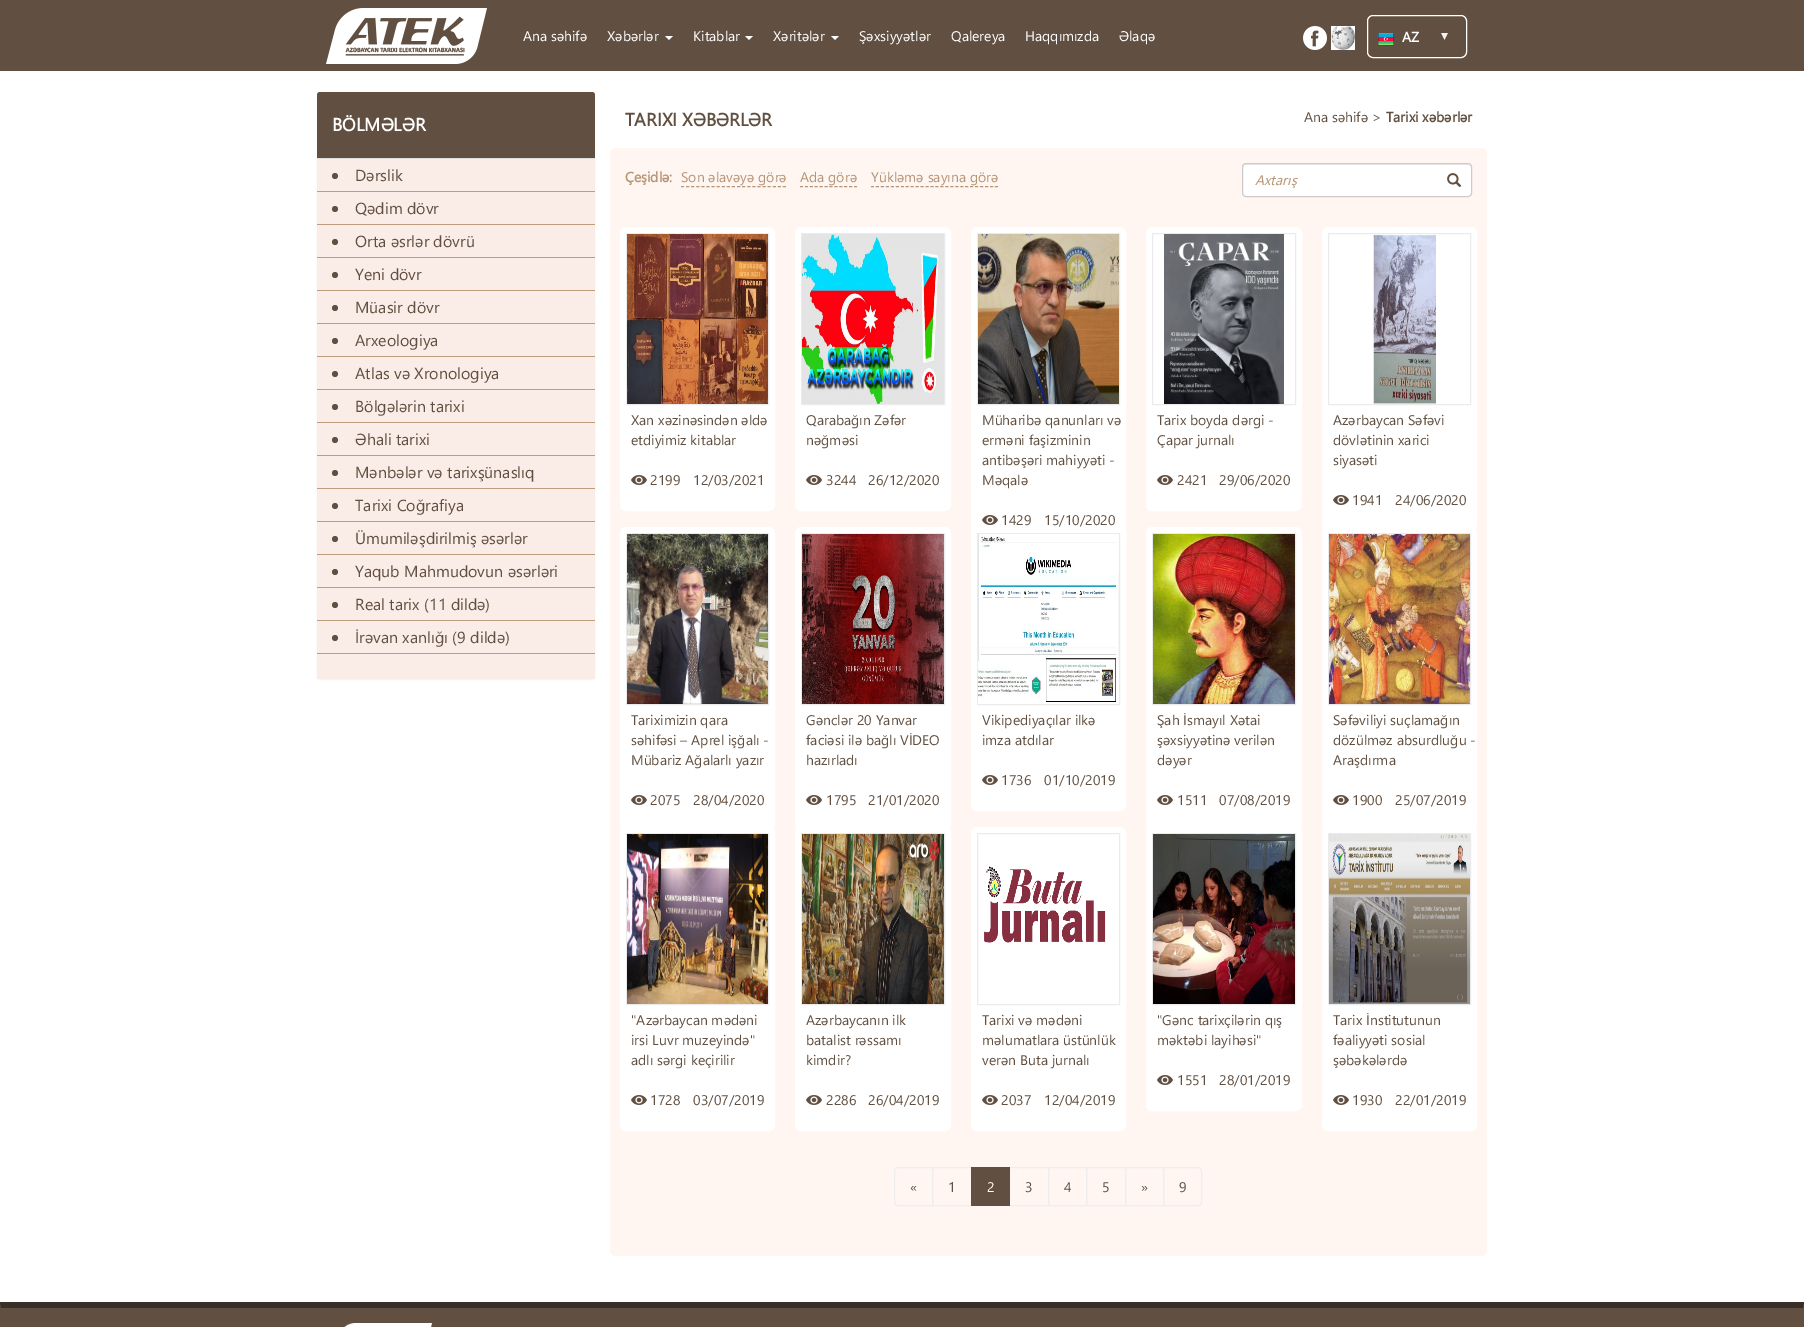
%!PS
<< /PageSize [1804 1327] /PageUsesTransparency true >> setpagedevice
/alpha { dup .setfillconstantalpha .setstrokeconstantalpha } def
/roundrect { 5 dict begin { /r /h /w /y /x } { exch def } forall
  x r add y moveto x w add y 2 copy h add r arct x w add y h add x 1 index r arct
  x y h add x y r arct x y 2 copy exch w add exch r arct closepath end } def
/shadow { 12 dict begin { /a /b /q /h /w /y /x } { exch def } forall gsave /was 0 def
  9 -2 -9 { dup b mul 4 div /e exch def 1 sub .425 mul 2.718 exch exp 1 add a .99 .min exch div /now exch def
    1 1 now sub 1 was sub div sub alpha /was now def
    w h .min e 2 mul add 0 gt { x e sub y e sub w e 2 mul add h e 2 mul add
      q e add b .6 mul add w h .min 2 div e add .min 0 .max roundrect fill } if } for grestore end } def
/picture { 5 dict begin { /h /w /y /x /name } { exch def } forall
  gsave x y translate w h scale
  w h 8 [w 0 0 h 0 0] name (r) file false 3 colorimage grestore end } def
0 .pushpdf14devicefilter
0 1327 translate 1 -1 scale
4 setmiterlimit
1 setgray
0 0 1804 1327 rectfill
0.38 0.314 0.255 setrgbcolor
0 0 1804 71 rectfill
(img1.rgb) 326 8 161 56 picture
/SegoeUI-Regular [14 0 0 -14 0 0] selectfont
1 setgray
523 41 moveto (Ana səhifə) show
607 41 moveto (Xəbərlər) show
newpath 665 36 moveto 673 36 lineto 669 40 lineto closepath fill
693 41 moveto (Kitablar) show
newpath 745 36 moveto 753 36 lineto 749 40 lineto closepath fill
773 41 moveto (Xəritələr) show
newpath 831 36 moveto 839 36 lineto 835 40 lineto closepath fill
859 41 moveto (Şəxsiyyətlər) show
951 41 moveto (Qalereya) show
1025 41 moveto (Haqqımızda) show
1119 41 moveto (Əlaqə) show
(img2.rgb) 1303 26 24 24 picture
(img3.rgb) 1331 26 24 24 picture
(img4.rgb) 1441 33 7 7 picture
1367.5 15.5 99 42 5.5 roundrect stroke
(img5.rgb) 1378 33 16 13 picture
/SegoeUI-Bold [14 0 0 -14 0 0] selectfont
1402 42 moveto (AZ) show
0 setgray
317 93 278 587 4 1 0.05 shadow
0.38 0.314 0.255 setrgbcolor
newpath 320 92 moveto 592 92 lineto 593.5 92 595 93.5 595 95 curveto 595 159 lineto 317 159 lineto 317 95 lineto 317 93.5 318.5 92 320 92 curveto closepath fill
0.867 setgray
317 158 278 1 rectfill
/SegoeUI-Bold [18 0 0 -18 0 0] selectfont
1 setgray
332 131 moveto (BÖLMƏLƏR) show
0.98 0.929 0.91 setrgbcolor
317 159 278 520 rectfill
0.749 0.612 0.494 setrgbcolor
317 191 278 1 rectfill
0.38 0.314 0.255 setrgbcolor
newpath 335 176 3 0 360 arc closepath fill
/SegoeUI-Regular [16 0 0 -16 0 0] selectfont
355 181 moveto (Dərslik) show
0.749 0.612 0.494 setrgbcolor
317 224 278 1 rectfill
0.38 0.314 0.255 setrgbcolor
newpath 335 209 3 0 360 arc closepath fill
355 214 moveto (Qədim dövr) show
0.749 0.612 0.494 setrgbcolor
317 257 278 1 rectfill
0.38 0.314 0.255 setrgbcolor
newpath 335 242 3 0 360 arc closepath fill
355 247 moveto (Orta əsrlər dövrü) show
0.749 0.612 0.494 setrgbcolor
317 290 278 1 rectfill
0.38 0.314 0.255 setrgbcolor
newpath 335 275 3 0 360 arc closepath fill
355 280 moveto (Yeni dövr) show
0.749 0.612 0.494 setrgbcolor
317 323 278 1 rectfill
0.38 0.314 0.255 setrgbcolor
newpath 335 308 3 0 360 arc closepath fill
355 313 moveto (Müasir dövr) show
0.749 0.612 0.494 setrgbcolor
317 356 278 1 rectfill
0.38 0.314 0.255 setrgbcolor
newpath 335 341 3 0 360 arc closepath fill
355 346 moveto (Arxeologiya) show
0.749 0.612 0.494 setrgbcolor
317 389 278 1 rectfill
0.38 0.314 0.255 setrgbcolor
newpath 335 374 3 0 360 arc closepath fill
355 379 moveto (Atlas və Xronologiya) show
0.749 0.612 0.494 setrgbcolor
317 422 278 1 rectfill
0.38 0.314 0.255 setrgbcolor
newpath 335 407 3 0 360 arc closepath fill
355 412 moveto (Bölgələrin tarixi) show
0.749 0.612 0.494 setrgbcolor
317 455 278 1 rectfill
0.38 0.314 0.255 setrgbcolor
newpath 335 440 3 0 360 arc closepath fill
355 445 moveto (Əhali tarixi) show
0.749 0.612 0.494 setrgbcolor
317 488 278 1 rectfill
0.38 0.314 0.255 setrgbcolor
newpath 335 473 3 0 360 arc closepath fill
355 478 moveto (Mənbələr və tarixşünaslıq) show
0.749 0.612 0.494 setrgbcolor
317 521 278 1 rectfill
0.38 0.314 0.255 setrgbcolor
newpath 335 506 3 0 360 arc closepath fill
355 511 moveto (Tarixi Coğrafiya) show
0.749 0.612 0.494 setrgbcolor
317 554 278 1 rectfill
0.38 0.314 0.255 setrgbcolor
newpath 335 539 3 0 360 arc closepath fill
355 544 moveto (Ümumiləşdirilmiş əsərlər) show
0.749 0.612 0.494 setrgbcolor
317 587 278 1 rectfill
0.38 0.314 0.255 setrgbcolor
newpath 335 572 3 0 360 arc closepath fill
355 577 moveto (Yaqub Mahmudovun əsərləri) show
0.749 0.612 0.494 setrgbcolor
317 620 278 1 rectfill
0.38 0.314 0.255 setrgbcolor
newpath 335 605 3 0 360 arc closepath fill
355 610 moveto (Real tarix \(11 dildə\)) show
0.749 0.612 0.494 setrgbcolor
317 653 278 1 rectfill
0.38 0.314 0.255 setrgbcolor
newpath 335 638 3 0 360 arc closepath fill
355 643 moveto (İrəvan xanlığı \(9 dildə\)) show
/SegoeUI-Bold [18 0 0 -18 0 0] selectfont
625 126 moveto (TARIXI XƏBƏRLƏR) show
/SegoeUI-Regular [14 0 0 -14 0 0] selectfont
1304 122 moveto (Ana səhifə >) show
/SegoeUI-Bold [14 0 0 -14 0 0] selectfont
1386 122 moveto (Tarixi xəbərlər) show
1 0.961 0.945 setrgbcolor
610 148 877 1108 6 roundrect fill
0.714 0.58 0.463 setrgbcolor
625 182 moveto (Çeşidlə:) show
/SegoeUI-Regular [14 0 0 -14 0 0] selectfont
681 182 moveto (Son əlavəyə görə) show
[3 2.1] 0 setdash
newpath 681 186.5 moveto 786 186.5 lineto stroke
800 182 moveto (Ada görə) show
[3 1.91] 0 setdash
newpath 800 186.5 moveto 857 186.5 lineto stroke
871 182 moveto (Yükləmə sayına görə) show
[3 1.96] 0 setdash
newpath 871 186.5 moveto 998 186.5 lineto stroke
1 setgray
1242 163 230 34 4 roundrect fill
0.925 setgray
newpath 1246 165 moveto 1468 165 lineto 1470 165 1471 166 1471 168 curveto 1471 167 lineto 1471 165 1470 164 1468 164 curveto 1246 164 lineto 1244 164 1243 165 1243 167 curveto 1243 168 lineto 1243 166 1244 165 1246 165 curveto closepath fill
0.8 setgray
[] 0 setdash
1242.5 163.5 229 33 3.5 roundrect stroke
/SegoeUI-Italic [14 0 0 -14 0 0] selectfont
0.714 0.58 0.463 setrgbcolor
1255 185 moveto (Axtarış) show
(img6.rgb) 1447 173 15 14 picture
1 setgray
620.5 227.5 154 283 5.5 roundrect gsave fill grestore
stroke
0.922 setgray
626.5 233.5 142 171 rectstroke
(img7.rgb) 627 234 141 170 picture
/SegoeUI-Regular [14 0 0 -14 0 0] selectfont
0.38 0.314 0.255 setrgbcolor
631 425 moveto (Xan xəzinəsindən əldə) show
631 445 moveto (etdiyimiz kitablar) show
(img8.rgb) 631 475 16 10 picture
650 485 moveto (2199) show
693 485 moveto (12/03/2021) show
1 setgray
795.5 227.5 155 283 5.5 roundrect gsave fill grestore
stroke
0.922 setgray
801.5 233.5 143 171 rectstroke
(img9.rgb) 802 234 142 170 picture
0.38 0.314 0.255 setrgbcolor
806 425 moveto (Qarabağın Zəfər) show
806 445 moveto (nəğməsi) show
(img8.rgb) 806 475 16 10 picture
826 485 moveto (3244) show
868 485 moveto (26/12/2020) show
1 setgray
971.5 227.5 154 323 5.5 roundrect gsave fill grestore
stroke
0.922 setgray
977.5 233.5 142 171 rectstroke
(img10.rgb) 978 234 141 170 picture
0.38 0.314 0.255 setrgbcolor
982 425 moveto (Müharibə qanunları və) show
982 445 moveto (erməni faşizminin) show
982 465 moveto (antibəşəri mahiyyəti -) show
982 485 moveto (Məqalə) show
(img8.rgb) 982 515 16 10 picture
1001 525 moveto (1429) show
1044 525 moveto (15/10/2020) show
1 setgray
1146.5 227.5 155 283 5.5 roundrect gsave fill grestore
stroke
0.922 setgray
1152.5 233.5 143 171 rectstroke
(img11.rgb) 1164 234 120 170 picture
0.38 0.314 0.255 setrgbcolor
1157 425 moveto (Tarix boyda dərgi -) show
1157 445 moveto (Çapar jurnalı) show
(img8.rgb) 1157 475 16 10 picture
1177 485 moveto (2421) show
1219 485 moveto (29/06/2020) show
1 setgray
1322.5 227.5 154 303 5.5 roundrect gsave fill grestore
stroke
0.922 setgray
1328.5 233.5 142 171 rectstroke
(img12.rgb) 1373 234 63 170 picture
0.38 0.314 0.255 setrgbcolor
1333 425 moveto (Azərbaycan Səfəvi) show
1333 445 moveto (dövlətinin xarici) show
1333 465 moveto (siyasəti) show
(img8.rgb) 1333 495 16 10 picture
1352 505 moveto (1941) show
1395 505 moveto (24/06/2020) show
1 setgray
620.5 527.5 154 303 5.5 roundrect gsave fill grestore
stroke
0.922 setgray
626.5 533.5 142 171 rectstroke
(img13.rgb) 627 534 141 170 picture
0.38 0.314 0.255 setrgbcolor
631 725 moveto (Tariximizin qara) show
631 745 moveto (səhifəsi – Aprel işğalı -) show
631 765 moveto (Mübariz Ağalarlı yazır) show
(img8.rgb) 631 795 16 10 picture
650 805 moveto (2075) show
693 805 moveto (28/04/2020) show
1 setgray
795.5 527.5 155 303 5.5 roundrect gsave fill grestore
stroke
0.922 setgray
801.5 533.5 143 171 rectstroke
(img14.rgb) 802 534 142 170 picture
0.38 0.314 0.255 setrgbcolor
806 725 moveto (Gənclər 20 Yanvar) show
806 745 moveto (faciəsi ilə bağlı VİDEO) show
806 765 moveto (hazırladı) show
(img8.rgb) 806 795 16 10 picture
826 805 moveto (1795) show
868 805 moveto (21/01/2020) show
1 setgray
971.5 527.5 154 283 5.5 roundrect gsave fill grestore
stroke
0.922 setgray
977.5 533.5 142 171 rectstroke
(img15.rgb) 978 534 141 168 picture
0.38 0.314 0.255 setrgbcolor
982 725 moveto (Vikipediyaçılar ilkə) show
982 745 moveto (imza atdılar) show
(img8.rgb) 982 775 16 10 picture
1001 785 moveto (1736) show
1044 785 moveto (01/10/2019) show
1 setgray
1146.5 527.5 155 303 5.5 roundrect gsave fill grestore
stroke
0.922 setgray
1152.5 533.5 143 171 rectstroke
(img16.rgb) 1153 534 142 170 picture
0.38 0.314 0.255 setrgbcolor
1157 725 moveto (Şah İsmayıl Xətai) show
1157 745 moveto (şəxsiyyətinə verilən) show
1157 765 moveto (dəyər) show
(img8.rgb) 1157 795 16 10 picture
1177 805 moveto (1511) show
1219 805 moveto (07/08/2019) show
1 setgray
1322.5 527.5 154 303 5.5 roundrect gsave fill grestore
stroke
0.922 setgray
1328.5 533.5 142 171 rectstroke
(img17.rgb) 1329 534 141 170 picture
0.38 0.314 0.255 setrgbcolor
1333 725 moveto (Səfəviliyi suçlamağın) show
1333 745 moveto (dözülməz absurdluğu -) show
1333 765 moveto (Araşdırma) show
(img8.rgb) 1333 795 16 10 picture
1352 805 moveto (1900) show
1395 805 moveto (25/07/2019) show
1 setgray
620.5 827.5 154 303 5.5 roundrect gsave fill grestore
stroke
0.922 setgray
626.5 833.5 142 171 rectstroke
(img18.rgb) 627 834 141 170 picture
0.38 0.314 0.255 setrgbcolor
631 1025 moveto ("Azərbaycan mədəni) show
631 1045 moveto (irsi Luvr muzeyində") show
631 1065 moveto (adlı sərgi keçirilir) show
(img8.rgb) 631 1095 16 10 picture
650 1105 moveto (1728) show
693 1105 moveto (03/07/2019) show
1 setgray
795.5 827.5 155 303 5.5 roundrect gsave fill grestore
stroke
0.922 setgray
801.5 833.5 143 171 rectstroke
(img19.rgb) 802 834 142 170 picture
0.38 0.314 0.255 setrgbcolor
806 1025 moveto (Azərbaycanın ilk) show
806 1045 moveto (batalist rəssamı) show
806 1065 moveto (kimdir?) show
(img8.rgb) 806 1095 16 10 picture
826 1105 moveto (2286) show
868 1105 moveto (26/04/2019) show
1 setgray
971.5 827.5 154 303 5.5 roundrect gsave fill grestore
stroke
0.922 setgray
977.5 833.5 142 171 rectstroke
(img20.rgb) 984 866 122 77 picture
0.38 0.314 0.255 setrgbcolor
982 1025 moveto (Tarixi və mədəni) show
982 1045 moveto (məlumatlara üstünlük) show
982 1065 moveto (verən Buta jurnalı) show
(img8.rgb) 982 1095 16 10 picture
1001 1105 moveto (2037) show
1044 1105 moveto (12/04/2019) show
1 setgray
1146.5 827.5 155 283 5.5 roundrect gsave fill grestore
stroke
0.922 setgray
1152.5 833.5 143 171 rectstroke
(img21.rgb) 1153 834 142 170 picture
0.38 0.314 0.255 setrgbcolor
1157 1025 moveto ("Gənc tarixçilərin qış) show
1157 1045 moveto (məktəbi layihəsi") show
(img8.rgb) 1157 1075 16 10 picture
1177 1085 moveto (1551) show
1219 1085 moveto (28/01/2019) show
1 setgray
1322.5 827.5 154 303 5.5 roundrect gsave fill grestore
stroke
0.922 setgray
1328.5 833.5 142 171 rectstroke
(img22.rgb) 1329 834 141 170 picture
0.38 0.314 0.255 setrgbcolor
1333 1025 moveto (Tarix İnstitutunun) show
1333 1045 moveto (fəaliyyəti sosial) show
1333 1065 moveto (şəbəkələrdə) show
(img8.rgb) 1333 1095 16 10 picture
1352 1105 moveto (1930) show
1395 1105 moveto (22/01/2019) show
0.933 setgray
newpath 898 1167.5 moveto 932.5 1167.5 lineto 932.5 1205.5 lineto 898 1205.5 lineto 896 1205.5 894.5 1204 894.5 1202 curveto 894.5 1171 lineto 894.5 1169 896 1167.5 898 1167.5 curveto closepath stroke
0.38 0.314 0.255 setrgbcolor
910 1192 moveto («) show
0.933 setgray
932.5 1167.5 39 38 rectstroke
0.38 0.314 0.255 setrgbcolor
948 1192 moveto (1) show
0.933 setgray
1009.5 1167.5 39 38 rectstroke
0.38 0.314 0.255 setrgbcolor
971 1167 39 39 rectfill
1 setgray
987 1192 moveto (2) show
0.38 0.314 0.255 setrgbcolor
1025 1192 moveto (3) show
0.933 setgray
1048.5 1167.5 38 38 rectstroke
0.38 0.314 0.255 setrgbcolor
1064 1192 moveto (4) show
0.933 setgray
1086.5 1167.5 39 38 rectstroke
0.38 0.314 0.255 setrgbcolor
1102 1192 moveto (5) show
0.933 setgray
1125.5 1167.5 38 38 rectstroke
0.38 0.314 0.255 setrgbcolor
1141 1192 moveto (») show
0.933 setgray
newpath 1163.5 1167.5 moveto 1198 1167.5 lineto 1200 1167.5 1201.5 1169 1201.5 1171 curveto 1201.5 1202 lineto 1201.5 1204 1200 1205.5 1198 1205.5 curveto 1163.5 1205.5 lineto closepath stroke
0.38 0.314 0.255 setrgbcolor
1179 1192 moveto (9) show
0 1302 1804 25 rectfill
0.227 0.184 0.149 setrgbcolor
newpath 0 1302 moveto 1804 1302 lineto 1803 1308 lineto 1 1308 lineto closepath fill
(img23.rgb) 344 1323 88 4 picture
.poppdf14devicefilter showpage
